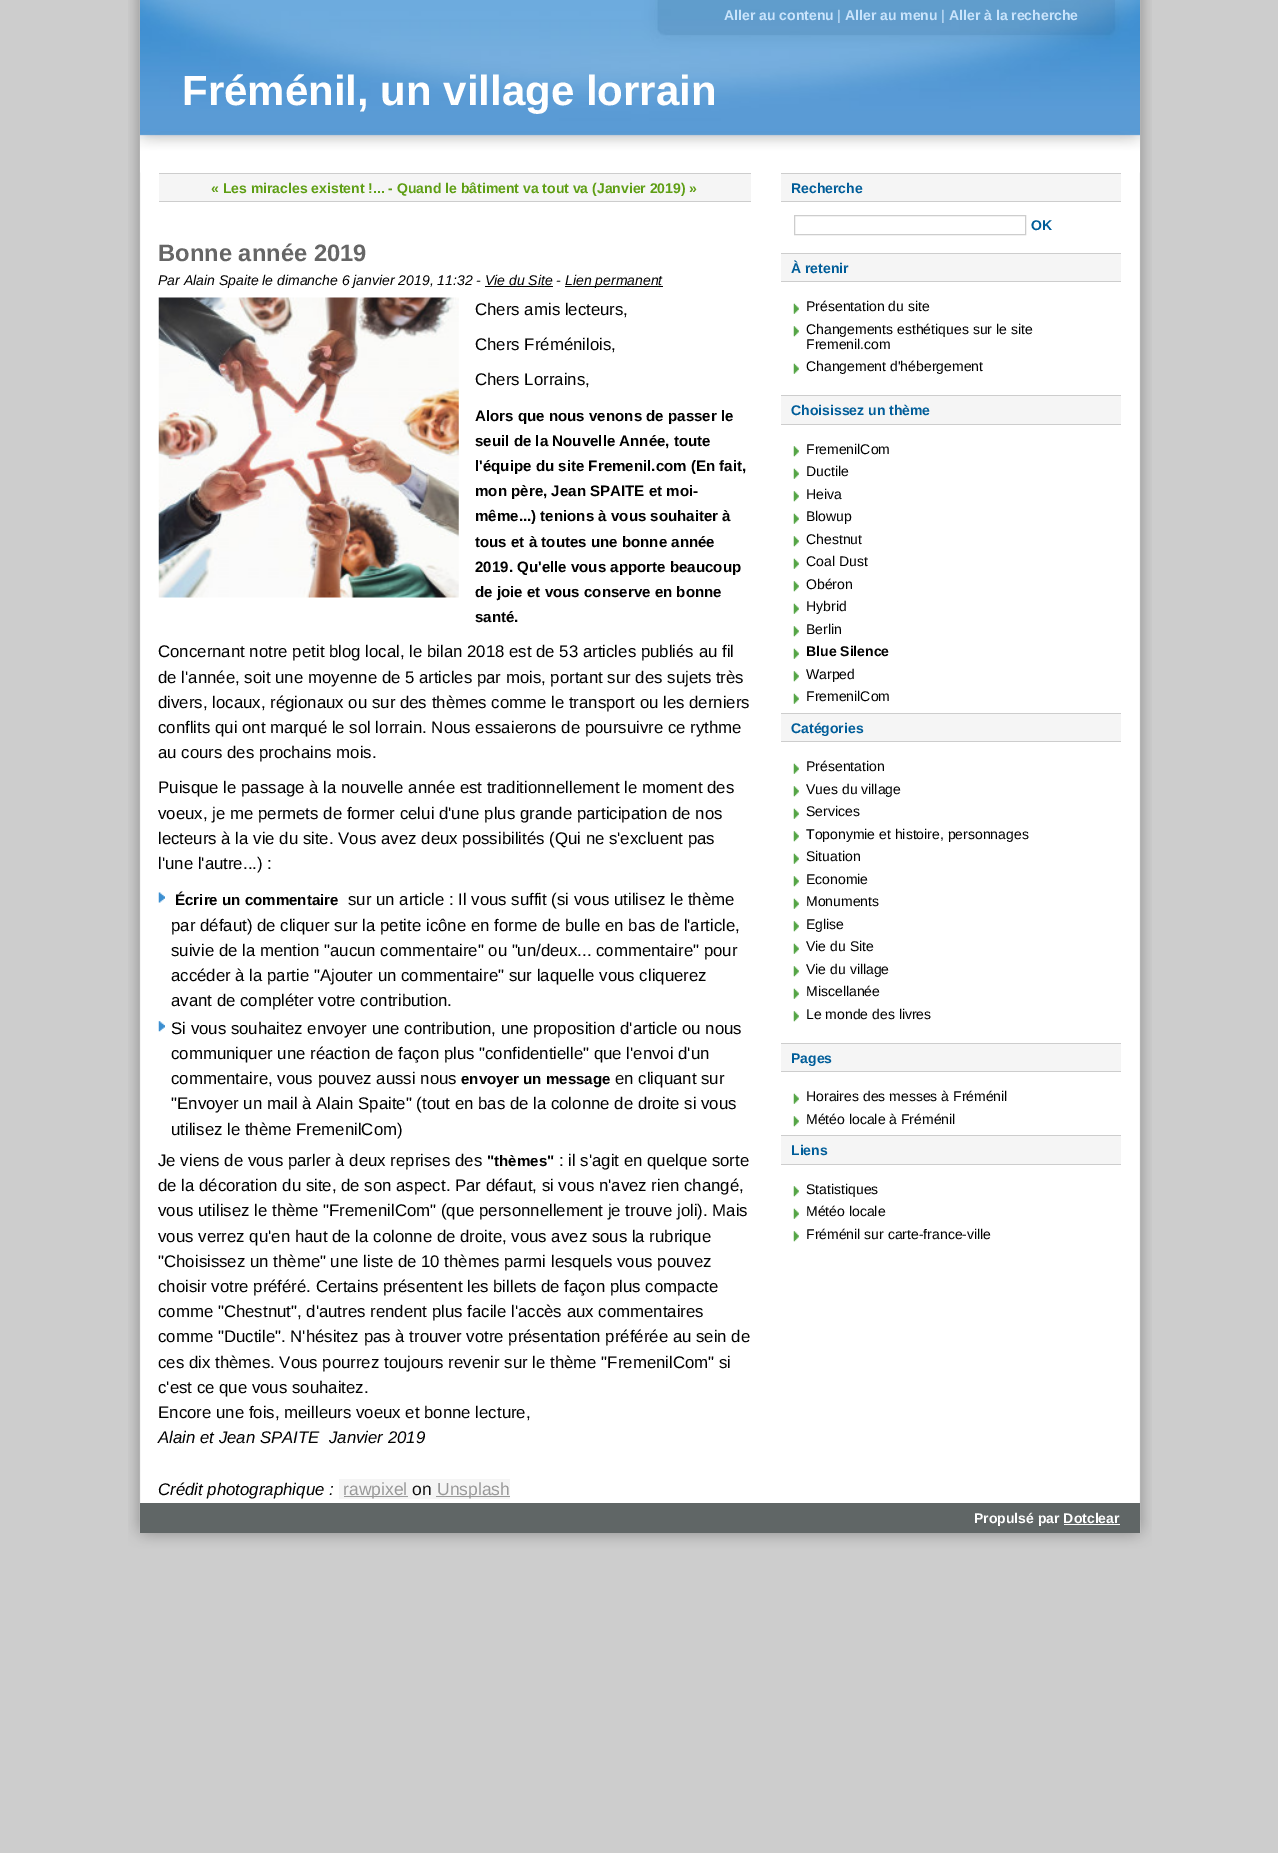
%!PS
<< /PageSize [1278 1853] >> setpagedevice
/picture { 5 dict begin { /h /w /y /x /name } { exch def } forall
  gsave x y translate w h scale
  w h 8 [w 0 0 h 0 0] name (r) file false 3 colorimage grestore end } def
0 1853 translate 1 -1 scale
4 setmiterlimit
0.804 setgray
0 0 1278 1853 rectfill
(img1.rgb) 128 0 1024 1520 picture
(img2.rgb) 140 0 1000 173 picture
/LiberationSans-Bold [14 0 0 -14 0 0] selectfont
0.792 0.894 0.988 setrgbcolor
724 20 moveto (Aller au contenu) show
/LiberationSans-Regular [14 0 0 -14 0 0] selectfont
837 20 moveto (|) show
/LiberationSans-Bold [14 0 0 -14 0 0] selectfont
845 20 moveto (Aller au menu) show
/LiberationSans-Regular [14 0 0 -14 0 0] selectfont
941 20 moveto (|) show
/LiberationSans-Bold [14 0 0 -14 0 0] selectfont
949 20 moveto (Aller à la recherche) show
/LiberationSans-Bold [42 0 0 -42 0 0] selectfont
1 setgray
182 105 moveto (Fréménil, un village lorrain) show
0.961 setgray
159 174 592 27 rectfill
0.804 setgray
159 173 592 1 rectfill
159 201 592 1 rectfill
/LiberationSans-Bold [14 0 0 -14 0 0] selectfont
0.369 0.62 0.078 setrgbcolor
211 193 moveto (« Les miracles existent !... - Quand le bâtiment va tout va \(Janvier 2019\) ») show
/LiberationSans-Bold [23.75 0 0 -23.75 0 0] selectfont
0.4 setgray
158 261 moveto (Bonne année 2019) show
/LiberationSans-Italic [14 0 0 -14 0 0] selectfont
0 setgray
158 285 moveto (Par Alain Spaite le dimanche 6 janvier 2019, 11:32 - Vie du Site -) show
565 286 98 1 rectfill
565 285 moveto (Lien permanent) show
485 286 68 1 rectfill
(img3.rgb) 158 297 301 301 picture
/LiberationSans-Regular [16.8 0 0 -16.8 0 0] selectfont
475 315 moveto (Chers amis lecteurs,) show
475 350 moveto (Chers Fréménilois,) show
475 385 moveto (Chers Lorrains,) show
/LiberationSans-Bold [15.1 0 0 -15.1 0 0] selectfont
475 421 moveto (Alors que nous venons de passer le) show
475 446 moveto (seuil de la Nouvelle Année, toute) show
475 471 moveto (l'équipe du site Fremenil.com \(En fait,) show
475 496 moveto (mon père, Jean SPAITE et moi-) show
475 521 moveto (même...\) tenions à vous souhaiter à) show
475 547 moveto (tous et à toutes une bonne année) show
475 572 moveto (2019. Qu'elle vous apporte beaucoup) show
475 597 moveto (de joie et vous conserve en bonne) show
475 622 moveto (santé.) show
/LiberationSans-Regular [16.8 0 0 -16.8 0 0] selectfont
158 657 moveto (Concernant notre petit blog local, le bilan 2018 est de 53 articles publiés au fil) show
158 683 moveto (de l'année, soit une moyenne de 5 articles par mois, portant sur des sujets très) show
158 708 moveto (divers, locaux, régionaux ou sur des thèmes comme le transport ou les derniers) show
158 733 moveto (conflits qui ont marqué le sol lorrain. Nous essaierons de poursuivre ce rythme) show
158 758 moveto (au cours des prochains mois.) show
158 793 moveto (Puisque le passage à la nouvelle année est traditionnellement le moment des) show
158 819 moveto (voeux, je me permets de former celui d'une plus grande participation de nos) show
158 844 moveto (lecteurs à la vie du site. Vous avez deux possibilités \(Qui ne s'excluent pas) show
158 869 moveto (l'une l'autre...\) :) show
(img4.rgb) 158 892 7 11 picture
/LiberationSans-Bold [15.1 0 0 -15.1 0 0] selectfont
175 905 moveto (Écrire un commentaire) show
/LiberationSans-Regular [16.8 0 0 -16.8 0 0] selectfont
348 905 moveto (sur un article : Il vous suffit \(si vous utilisez le thème) show
171 931 moveto (par défaut\) de cliquer sur la petite icône en forme de bulle en bas de l'article,) show
171 956 moveto (suivie de la mention "aucun commentaire" ou "un/deux... commentaire" pour) show
171 981 moveto (accéder à la partie "Ajouter un commentaire" sur laquelle vous cliquerez) show
171 1006 moveto (avant de compléter votre contribution.) show
(img5.rgb) 158 1021 7 11 picture
171 1034 moveto (Si vous souhaitez envoyer une contribution, une proposition d'article ou nous) show
171 1059 moveto (communiquer une réaction de façon plus "confidentielle" que l'envoi d'un) show
171 1084 moveto (commentaire, vous pouvez aussi nous) show
/LiberationSans-Bold [15.1 0 0 -15.1 0 0] selectfont
461 1084 moveto (envoyer un message) show
/LiberationSans-Regular [16.8 0 0 -16.8 0 0] selectfont
615 1084 moveto (en cliquant sur) show
171 1109 moveto ("Envoyer un mail à Alain Spaite" \(tout en bas de la colonne de droite si vous) show
171 1135 moveto (utilisez le thème FremenilCom\)) show
158 1166 moveto (Je viens de vous parler à deux reprises des) show
/LiberationSans-Bold [15.1 0 0 -15.1 0 0] selectfont
487 1166 moveto ("thèmes") show
/LiberationSans-Regular [16.8 0 0 -16.8 0 0] selectfont
559 1166 moveto (: il s'agit en quelque sorte) show
158 1191 moveto (de la décoration du site, de son aspect. Par défaut, si vous n'avez rien changé,) show
158 1216 moveto (vous utilisez le thème "FremenilCom" \(que personnellement je trouve joli\). Mais) show
158 1242 moveto (vous verrez qu'en haut de la colonne de droite, vous avez sous la rubrique) show
158 1267 moveto ("Choisissez un thème" une liste de 10 thèmes parmi lesquels vous pouvez) show
158 1292 moveto (choisir votre préféré. Certains présentent les billets de façon plus compacte) show
158 1317 moveto (comme "Chestnut", d'autres rendent plus facile l'accès aux commentaires) show
158 1342 moveto (comme "Ductile". N'hésitez pas à trouver votre présentation préférée au sein de) show
158 1368 moveto (ces dix thèmes. Vous pourrez toujours revenir sur le thème "FremenilCom" si) show
158 1393 moveto (c'est ce que vous souhaitez.) show
158 1418 moveto (Encore une fois, meilleurs voeux et bonne lecture,) show
/LiberationSans-Italic [16.8 0 0 -16.8 0 0] selectfont
158 1443 moveto (Alain et Jean SPAITE  Janvier 2019) show
158 1495 moveto (Crédit photographique :) show
0.961 setgray
339 1479 171 20 rectfill
0.6 setgray
344 1496 64 1 rectfill
/LiberationSans-Regular [17.5 0 0 -17.5 0 0] selectfont
343 1495 moveto (rawpixel) show
0.067 setgray
412 1495 moveto (on) show
0.6 setgray
436 1496 74 1 rectfill
437 1495 moveto (Unsplash) show
0.961 setgray
781 174 340 27 rectfill
0.804 setgray
781 173 340 1 rectfill
781 201 340 1 rectfill
/LiberationSans-Bold [14 0 0 -14 0 0] selectfont
0 0.365 0.6 setrgbcolor
791 193 moveto (Recherche) show
0.804 setgray
794.5 215.5 231 19 rectstroke
0 0.365 0.6 setrgbcolor
1031 230 moveto (OK) show
0.961 setgray
781 254 340 27 rectfill
0.804 setgray
781 253 340 1 rectfill
781 281 340 1 rectfill
0 0.365 0.6 setrgbcolor
791 273 moveto (À retenir) show
(img6.rgb) 793 303 6 11 picture
/LiberationSans-Regular [14 0 0 -14 0 0] selectfont
0 setgray
806 311 moveto (Présentation du site) show
(img7.rgb) 793 326 6 11 picture
806 334 moveto (Changements esthétiques sur le site) show
806 349 moveto (Fremenil.com) show
(img6.rgb) 793 363 6 11 picture
806 371 moveto (Changement d'hébergement) show
0.961 setgray
781 396 340 28 rectfill
0.804 setgray
781 395 340 1 rectfill
781 424 340 1 rectfill
/LiberationSans-Bold [14 0 0 -14 0 0] selectfont
0 0.365 0.6 setrgbcolor
791 415 moveto (Choisissez un thème) show
(img7.rgb) 793 446 6 11 picture
/LiberationSans-Regular [14 0 0 -14 0 0] selectfont
0 setgray
806 454 moveto (FremenilCom) show
(img6.rgb) 793 468 6 11 picture
806 476 moveto (Ductile) show
(img7.rgb) 793 491 6 11 picture
806 499 moveto (Heiva) show
(img6.rgb) 793 513 6 11 picture
806 521 moveto (Blowup) show
(img7.rgb) 793 536 6 11 picture
806 544 moveto (Chestnut) show
(img6.rgb) 793 558 6 11 picture
806 566 moveto (Coal Dust) show
(img7.rgb) 793 581 6 11 picture
806 589 moveto (Obéron) show
(img6.rgb) 793 603 6 11 picture
806 611 moveto (Hybrid) show
(img7.rgb) 793 626 6 11 picture
806 634 moveto (Berlin) show
(img6.rgb) 793 648 6 11 picture
/LiberationSans-Bold [14 0 0 -14 0 0] selectfont
806 656 moveto (Blue Silence) show
(img7.rgb) 793 671 6 11 picture
/LiberationSans-Regular [14 0 0 -14 0 0] selectfont
806 679 moveto (Warped) show
(img6.rgb) 793 693 6 11 picture
806 701 moveto (FremenilCom) show
0.961 setgray
781 714 340 27 rectfill
0.804 setgray
781 713 340 1 rectfill
781 741 340 1 rectfill
/LiberationSans-Bold [14 0 0 -14 0 0] selectfont
0 0.365 0.6 setrgbcolor
791 733 moveto (Catégories) show
(img6.rgb) 793 763 6 11 picture
/LiberationSans-Regular [14 0 0 -14 0 0] selectfont
0 setgray
806 771 moveto (Présentation) show
(img7.rgb) 793 786 6 11 picture
806 794 moveto (Vues du village) show
(img6.rgb) 793 808 6 11 picture
806 816 moveto (Services) show
(img7.rgb) 793 831 6 11 picture
806 839 moveto (Toponymie et histoire, personnages) show
(img6.rgb) 793 853 6 11 picture
806 861 moveto (Situation) show
(img7.rgb) 793 876 6 11 picture
806 884 moveto (Economie) show
(img6.rgb) 793 898 6 11 picture
806 906 moveto (Monuments) show
(img7.rgb) 793 921 6 11 picture
806 929 moveto (Eglise) show
(img6.rgb) 793 943 6 11 picture
806 951 moveto (Vie du Site) show
(img7.rgb) 793 966 6 11 picture
806 974 moveto (Vie du village) show
(img6.rgb) 793 988 6 11 picture
806 996 moveto (Miscellanée) show
(img7.rgb) 793 1011 6 11 picture
806 1019 moveto (Le monde des livres) show
0.961 setgray
781 1044 340 27 rectfill
0.804 setgray
781 1043 340 1 rectfill
781 1071 340 1 rectfill
/LiberationSans-Bold [14 0 0 -14 0 0] selectfont
0 0.365 0.6 setrgbcolor
791 1063 moveto (Pages) show
(img6.rgb) 793 1093 6 11 picture
/LiberationSans-Regular [14 0 0 -14 0 0] selectfont
0 setgray
806 1101 moveto (Horaires des messes à Fréménil) show
(img7.rgb) 793 1116 6 11 picture
806 1124 moveto (Météo locale à Fréménil) show
0.961 setgray
781 1136 340 28 rectfill
0.804 setgray
781 1135 340 1 rectfill
781 1164 340 1 rectfill
/LiberationSans-Bold [14 0 0 -14 0 0] selectfont
0 0.365 0.6 setrgbcolor
791 1155 moveto (Liens) show
(img7.rgb) 793 1186 6 11 picture
/LiberationSans-Regular [14 0 0 -14 0 0] selectfont
0 setgray
806 1194 moveto (Statistiques) show
(img6.rgb) 793 1208 6 11 picture
806 1216 moveto (Météo locale) show
(img7.rgb) 793 1231 6 11 picture
806 1239 moveto (Fréménil sur carte-france-ville) show
(img8.rgb) 128 1520 1024 30 picture
0.376 0.4 0.4 setrgbcolor
140 1503 1000 30 rectfill
/LiberationSans-Bold [14 0 0 -14 0 0] selectfont
1 setgray
974 1523 moveto (Propulsé par Dotclear) show
1064 1524 56 1 rectfill
showpage
